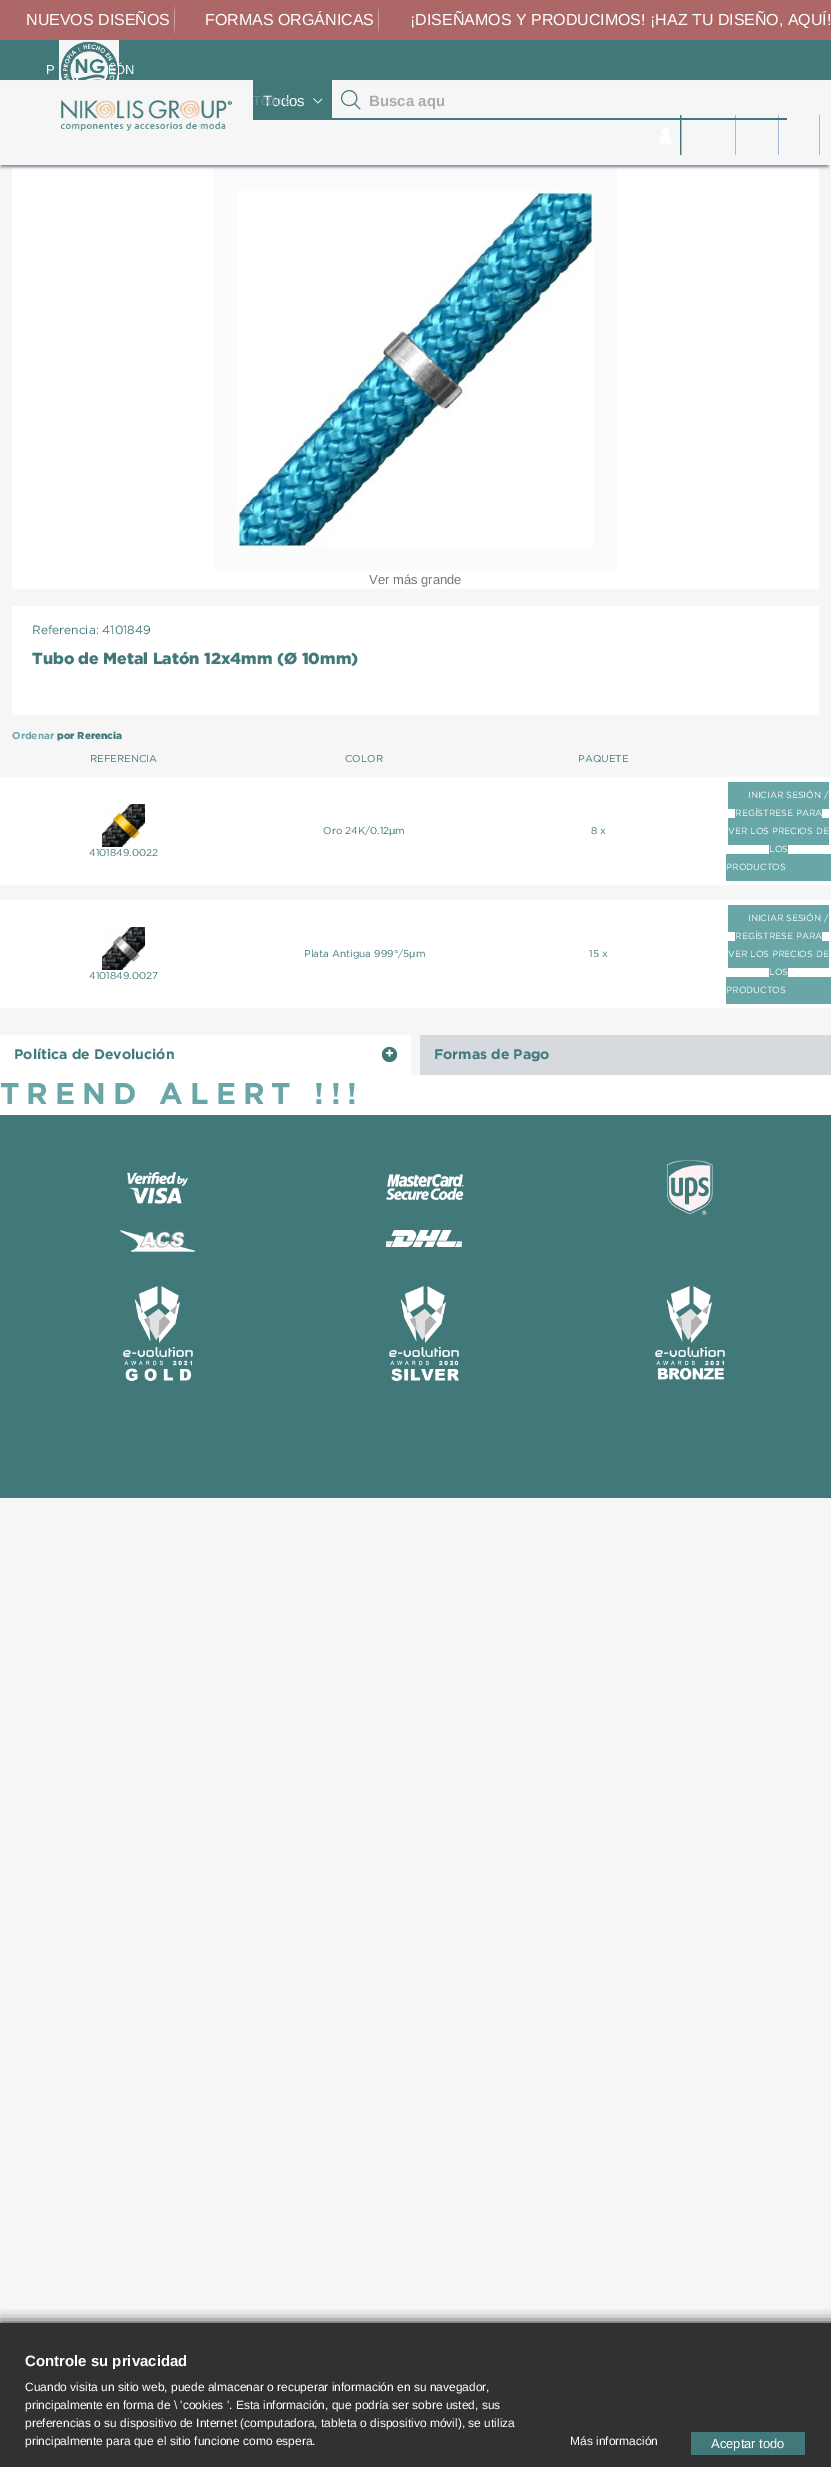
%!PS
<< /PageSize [831 2467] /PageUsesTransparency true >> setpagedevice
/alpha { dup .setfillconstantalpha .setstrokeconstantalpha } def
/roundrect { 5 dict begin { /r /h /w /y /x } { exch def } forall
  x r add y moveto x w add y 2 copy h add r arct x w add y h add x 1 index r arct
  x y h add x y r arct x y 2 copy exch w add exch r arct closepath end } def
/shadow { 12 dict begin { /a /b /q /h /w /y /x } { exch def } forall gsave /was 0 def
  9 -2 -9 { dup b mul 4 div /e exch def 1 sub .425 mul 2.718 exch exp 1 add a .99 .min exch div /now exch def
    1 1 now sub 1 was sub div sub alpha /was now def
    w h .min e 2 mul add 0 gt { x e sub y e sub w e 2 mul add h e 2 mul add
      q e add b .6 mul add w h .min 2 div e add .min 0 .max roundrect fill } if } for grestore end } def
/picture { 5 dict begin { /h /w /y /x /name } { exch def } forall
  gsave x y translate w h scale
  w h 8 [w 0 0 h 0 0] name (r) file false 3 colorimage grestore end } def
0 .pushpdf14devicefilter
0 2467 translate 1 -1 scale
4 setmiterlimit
0.965 setgray
0 0 831 2467 rectfill
0.192 setgray
0 2323 831 144 rectfill
0.678 0.404 0.404 setrgbcolor
0 0 831 40 rectfill
/LiberationSans-Regular [16 0 0 -16 0 0] selectfont
1 setgray
26 25 moveto (NUEVOS DISEÑOS) show
gsave newpath 174 4 moveto 175 4 lineto 175 36 lineto 174 36 lineto closepath clip newpath
<< /ShadingType 2 /ColorSpace /DeviceRGB /Coords [175 4 175 36] /Extend [true true] /Function << /FunctionType 3 /Domain [0 1] /Functions [<< /FunctionType 2 /Domain [0 1] /C0 [0.678 0.404 0.404] /C1 [0.808 0.643 0.643] /N 1 >> << /FunctionType 2 /Domain [0 1] /C0 [0.808 0.643 0.643] /C1 [0.808 0.643 0.643] /N 1 >> << /FunctionType 2 /Domain [0 1] /C0 [0.808 0.643 0.643] /C1 [0.678 0.404 0.404] /N 1 >>] /Bounds [0.33 0.67] /Encode [0 1 0 1 0 1] >> >> shfill grestore
205 25 moveto (FORMAS ORGÁNICAS) show
gsave newpath 378 4 moveto 379 4 lineto 379 36 lineto 378 36 lineto closepath clip newpath
<< /ShadingType 2 /ColorSpace /DeviceRGB /Coords [379 4 379 36] /Extend [true true] /Function << /FunctionType 3 /Domain [0 1] /Functions [<< /FunctionType 2 /Domain [0 1] /C0 [0.678 0.404 0.404] /C1 [0.808 0.643 0.643] /N 1 >> << /FunctionType 2 /Domain [0 1] /C0 [0.808 0.643 0.643] /C1 [0.808 0.643 0.643] /N 1 >> << /FunctionType 2 /Domain [0 1] /C0 [0.808 0.643 0.643] /C1 [0.678 0.404 0.404] /N 1 >>] /Bounds [0.33 0.67] /Encode [0 1 0 1 0 1] >> >> shfill grestore
410 25 moveto (¡DISEÑAMOS Y PRODUCIMOS! ¡HAZ TU DISEÑO, AQUÍ!) show
0.255 0.475 0.482 setrgbcolor
0 40 831 40 rectfill
/LiberationSans-Regular [13 0 0 -13 0 0] selectfont
1 setgray
115 74 moveto (ÓN) show
(img1.rgb) 59 40 60 40 picture
46 74 moveto (P) show
108 74 moveto (E) show
12 168 807 421 rectfill
0.984 setgray
214 168 403 403 rectfill
0.467 0.533 0.6 setrgbcolor
1 86 827 81 0 1.5 1 shadow
0.965 setgray
0 83 831 82 rectfill
(img2.rgb) 61 100 171 31 picture
0.255 0.475 0.482 setrgbcolor
253 80 79 38 rectfill
/LiberationSans-Regular [15 0 0 -15 0 0] selectfont
1 setgray
263 106 moveto (Todos) show
/LiberationSans-Regular [13 0 0 -13 0 0] selectfont
0.412 0.584 0.592 setrgbcolor
253 105 moveto (Todos) show
(img3.rgb) 313 98 9 6 picture
(img4.rgb) 341 90 20 20 picture
/LiberationSans-Bold [15 0 0 -15 0 0] selectfont
0.667 setgray
369 106 moveto (Busca aqu) show
0.627 0.725 0.867 setrgbcolor
681 115 1 40 rectfill
0.255 0.475 0.482 setrgbcolor
680 115 1 40 rectfill
0.627 0.725 0.867 setrgbcolor
735 115 1 40 rectfill
778 115 1 40 rectfill
0.255 0.475 0.482 setrgbcolor
253 118 534 2 rectfill
(img5.rgb) 659 128 13 16 picture
0.627 0.725 0.867 setrgbcolor
819 115 1 40 rectfill
(img6.rgb) 237 190 357 357 picture
/LiberationSans-Regular [13 0 0 -13 0 0] selectfont
0.467 setgray
369 584 moveto (Ver más grande) show
1 setgray
12 606 807 109 rectfill
/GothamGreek-Regular [12 0 0 -12 0 0] selectfont
0.255 0.475 0.482 setrgbcolor
32 634 moveto (Referencia: 4101849) show
/GothamGreek-Black [16 0 0 -16 0 0] selectfont
32 664 moveto (Tubo de Metal Latón 12x4mm \(Ø 10mm\)) show
/GothamGreek-Bold [10 0 0 -10 0 0] selectfont
0.412 0.651 0.659 setrgbcolor
12 739 moveto (Ordenar) show
/GothamGreek-Black [10 0 0 -10 0 0] selectfont
0.255 0.475 0.482 setrgbcolor
57 739 moveto (por Rerencia) show
/GothamGreek-Regular [10 0 0 -10 0 0] selectfont
90 762 moveto (REFERENCIA) show
345 762 moveto (COLOR) show
578 762 moveto (PAQUETE) show
1 setgray
0 777 831 108 rectfill
0.255 0.475 0.482 setrgbcolor
323 834 moveto (Oro 24K/0.12µm) show
591 834 moveto (8 x) show
0.412 0.651 0.659 setrgbcolor
728 782 101 27 rectfill
/GothamGreek-Regular [9 0 0 -9 0 0] selectfont
1 setgray
748 798 moveto (INICIAR SESIÓN /) show
0.412 0.651 0.659 setrgbcolor
735 809 87 9 rectfill
1 setgray
735 816 moveto (REGÍSTRESE PARA) show
0.412 0.651 0.659 setrgbcolor
728 818 101 27 rectfill
1 setgray
728 834 moveto (VER LOS PRECIOS DE) show
0.412 0.651 0.659 setrgbcolor
769 845 19 9 rectfill
1 setgray
769 852 moveto (LOS) show
0.412 0.651 0.659 setrgbcolor
726 854 105 27 rectfill
1 setgray
726 870 moveto (PRODUCTOS) show
(img7.rgb) 102 804 43 43 picture
/GothamGreek-Regular [10 0 0 -10 0 0] selectfont
0.255 0.475 0.482 setrgbcolor
89 856 moveto (4101849.0022) show
1 setgray
0 900 831 108 rectfill
0.255 0.475 0.482 setrgbcolor
304 957 moveto (Plata Antigua 999°/5μm) show
589 957 moveto (15 x) show
0.412 0.651 0.659 setrgbcolor
728 905 101 27 rectfill
/GothamGreek-Regular [9 0 0 -9 0 0] selectfont
1 setgray
748 921 moveto (INICIAR SESIÓN /) show
0.412 0.651 0.659 setrgbcolor
735 932 87 9 rectfill
1 setgray
735 939 moveto (REGÍSTRESE PARA) show
0.412 0.651 0.659 setrgbcolor
728 941 101 27 rectfill
1 setgray
728 957 moveto (VER LOS PRECIOS DE) show
0.412 0.651 0.659 setrgbcolor
769 968 19 9 rectfill
1 setgray
769 975 moveto (LOS) show
0.412 0.651 0.659 setrgbcolor
726 977 105 27 rectfill
1 setgray
726 993 moveto (PRODUCTOS) show
(img8.rgb) 102 927 43 43 picture
/GothamGreek-Regular [10 0 0 -10 0 0] selectfont
0.255 0.475 0.482 setrgbcolor
89 979 moveto (4101849.0027) show
1 setgray
0 1035 411 40 rectfill
/GothamGreek-Bold [14 0 0 -14 0 0] selectfont
0.255 0.475 0.482 setrgbcolor
14 1059 moveto (Política de Devolución) show
newpath 389.5 1054.5 7.5 0 360 arc closepath fill
1 setgray
385 1058 moveto (+) show
0.839 0.851 0.871 setrgbcolor
420 1035 411 40 rectfill
0.255 0.475 0.482 setrgbcolor
434 1059 moveto (Formas de Pago) show
0 1115 831 383 rectfill
1 setgray
0 1075 831 40 rectfill
/GothamGreek-Bold [30 0 0 -30 0 0] selectfont
0.412 0.651 0.659 setrgbcolor
0 1104 moveto 7 0 (TREND ALERT !!!) ashow
(img9.rgb) 127 1172 61 32 picture
(img10.rgb) 386 1174 78 26 picture
(img11.rgb) 667 1160 46 55 picture
(img12.rgb) 120 1230 75 22 picture
(img13.rgb) 386 1230 76 17 picture
(img14.rgb) 123 1286 70 95 picture
(img15.rgb) 389 1286 70 95 picture
(img16.rgb) 655 1286 70 94 picture
gsave
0 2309 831 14 rectclip
0.071 setgray
0 2323 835 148 0 7 1 shadow
grestore
/LiberationSans-Bold [15 0 0 -15 0 0] selectfont
1 setgray
25 2366 moveto (Controle su privacidad) show
/LiberationSans-Regular [12 0 0 -12 0 0] selectfont
25 2391 moveto (Cuando visita un sitio web, puede almacenar o recuperar información en su navegador,) show
25 2409 moveto (principalmente en forma de \\ 'cookies '. Esta información, que podría ser sobre usted, sus) show
25 2427 moveto (preferencias o su dispositivo de Internet \(computadora, tableta o dispositivo móvil\), se utiliza) show
25 2445 moveto (principalmente para que el sitio funcione como espera.) show
570 2445 moveto (Más información) show
0.255 0.475 0.482 setrgbcolor
691 2432 114 23 rectfill
/LiberationSans-Regular [13 0 0 -13 0 0] selectfont
1 setgray
711 2448 moveto (Aceptar todo) show
.poppdf14devicefilter showpage
